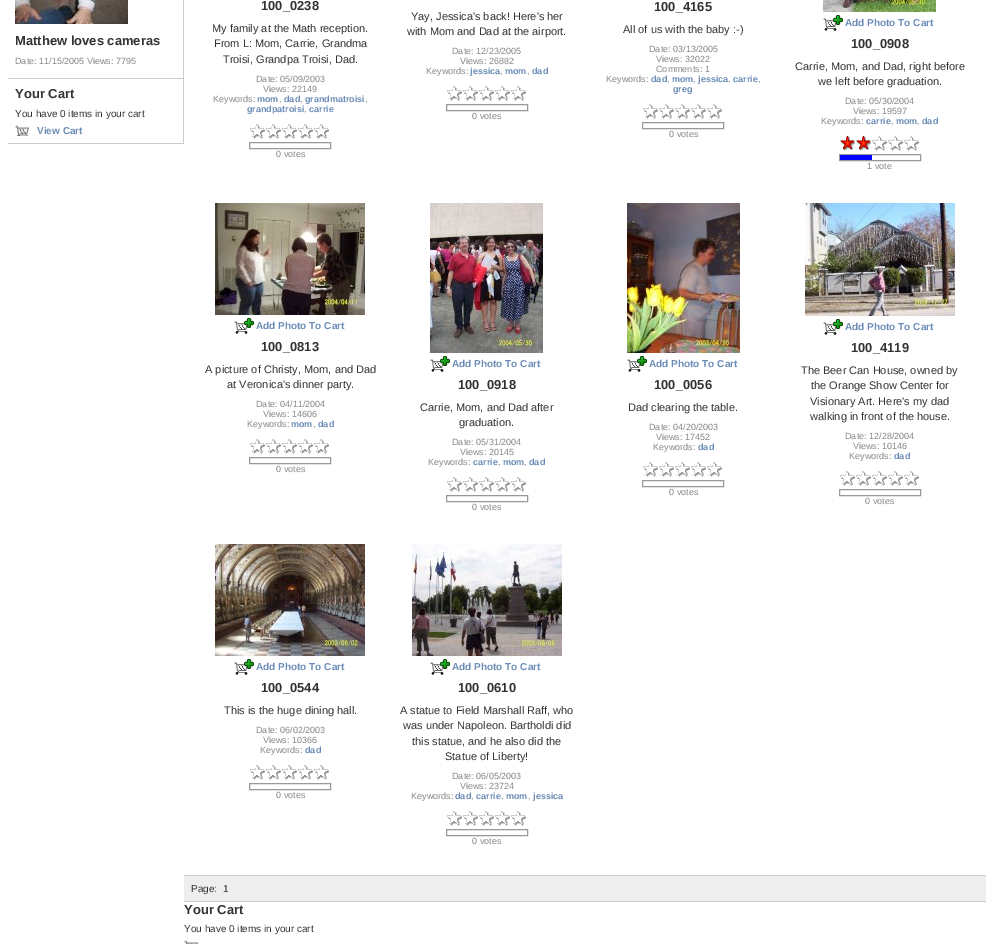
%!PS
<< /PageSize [994 944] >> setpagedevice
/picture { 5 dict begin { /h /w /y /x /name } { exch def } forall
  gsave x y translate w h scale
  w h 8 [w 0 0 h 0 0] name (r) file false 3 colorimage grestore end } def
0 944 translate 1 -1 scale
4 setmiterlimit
1 setgray
0 0 994 944 rectfill
0.8 setgray
183 0 1 144 rectfill
8 78 175 1 rectfill
(img1.rgb) 15 0 113 24 picture
/LiberationSans-Bold [13 0 0 -13 0 0] selectfont
0.2 setgray
15 45 moveto (Matthew loves cameras) show
/LiberationSans-Regular [9 0 0 -9 0 0] selectfont
0.533 setgray
15 64 moveto (Date: 11/15/2005 Views: 7795) show
0.8 setgray
8 143 175 1 rectfill
/LiberationSans-Bold [13 0 0 -13 0 0] selectfont
0.2 setgray
15 98 moveto (Your Cart) show
/LiberationSans-Regular [10 0 0 -10 0 0] selectfont
15 117 moveto (You have 0 items in your cart) show
(img2.rgb) 15 125 14 11 picture
/LiberationSans-Bold [10 0 0 -10 0 0] selectfont
0.42 0.549 0.718 setrgbcolor
37 134 moveto (View Cart) show
0.8 setgray
184 875 802 1 rectfill
/LiberationSans-Bold [13 0 0 -13 0 0] selectfont
0.2 setgray
261 10 moveto (100_0238) show
/LiberationSans-Regular [11 0 0 -11 0 0] selectfont
212 32 moveto (My family at the Math reception.) show
214 47 moveto (From L: Mom, Carrie, Grandma) show
223 63 moveto (Troisi, Grandpa Troisi, Dad.) show
/LiberationSans-Regular [9 0 0 -9 0 0] selectfont
0.533 setgray
256 82 moveto (Date: 05/09/2003) show
263 92 moveto (Views: 22149) show
213 102 moveto (Keywords:) show
/LiberationSans-Bold [9 0 0 -9 0 0] selectfont
0.42 0.549 0.718 setrgbcolor
257 102 moveto (mom) show
/LiberationSans-Regular [9 0 0 -9 0 0] selectfont
0.533 setgray
279 102 moveto (,) show
/LiberationSans-Bold [9 0 0 -9 0 0] selectfont
0.42 0.549 0.718 setrgbcolor
284 102 moveto (dad) show
/LiberationSans-Regular [9 0 0 -9 0 0] selectfont
0.533 setgray
300 102 moveto (,) show
/LiberationSans-Bold [9 0 0 -9 0 0] selectfont
0.42 0.549 0.718 setrgbcolor
305 102 moveto (grandmatroisi) show
/LiberationSans-Regular [9 0 0 -9 0 0] selectfont
0.533 setgray
365 102 moveto (,) show
/LiberationSans-Bold [9 0 0 -9 0 0] selectfont
0.42 0.549 0.718 setrgbcolor
247 112 moveto (grandpatroisi) show
/LiberationSans-Regular [9 0 0 -9 0 0] selectfont
0.533 setgray
304 112 moveto (,) show
/LiberationSans-Bold [9 0 0 -9 0 0] selectfont
0.42 0.549 0.718 setrgbcolor
309 112 moveto (carrie) show
(img3.rgb) 250 124 15 15 picture
(img3.rgb) 266 124 15 15 picture
(img3.rgb) 282 124 15 15 picture
(img3.rgb) 298 124 15 15 picture
(img3.rgb) 314 124 15 15 picture
0.6 setgray
249.5 142.5 81 6 rectstroke
/LiberationSans-Regular [9 0 0 -9 0 0] selectfont
0.533 setgray
276 157 moveto (0 votes) show
/LiberationSans-Regular [11 0 0 -11 0 0] selectfont
0.2 setgray
411 20 moveto (Yay, Jessica's back! Here's her) show
407 35 moveto (with Mom and Dad at the airport.) show
/LiberationSans-Regular [9 0 0 -9 0 0] selectfont
0.533 setgray
452 54 moveto (Date: 12/23/2005) show
460 64 moveto (Views: 26882) show
426 74 moveto (Keywords:) show
/LiberationSans-Bold [9 0 0 -9 0 0] selectfont
0.42 0.549 0.718 setrgbcolor
470 74 moveto (jessica) show
/LiberationSans-Regular [9 0 0 -9 0 0] selectfont
0.533 setgray
500 74 moveto (,) show
/LiberationSans-Bold [9 0 0 -9 0 0] selectfont
0.42 0.549 0.718 setrgbcolor
505 74 moveto (mom) show
/LiberationSans-Regular [9 0 0 -9 0 0] selectfont
0.533 setgray
527 74 moveto (,) show
/LiberationSans-Bold [9 0 0 -9 0 0] selectfont
0.42 0.549 0.718 setrgbcolor
532 74 moveto (dad) show
(img3.rgb) 447 86 15 15 picture
(img3.rgb) 463 86 15 15 picture
(img3.rgb) 479 86 15 15 picture
(img3.rgb) 495 86 15 15 picture
(img3.rgb) 511 86 15 15 picture
0.6 setgray
446.5 104.5 81 6 rectstroke
/LiberationSans-Regular [9 0 0 -9 0 0] selectfont
0.533 setgray
472 119 moveto (0 votes) show
/LiberationSans-Bold [13 0 0 -13 0 0] selectfont
0.2 setgray
654 11 moveto (100_4165) show
/LiberationSans-Regular [11 0 0 -11 0 0] selectfont
623 33 moveto (All of us with the baby :-\)) show
/LiberationSans-Regular [9 0 0 -9 0 0] selectfont
0.533 setgray
649 52 moveto (Date: 03/13/2005) show
656 62 moveto (Views: 32022) show
656 72 moveto (Comments: 1) show
606 82 moveto (Keywords:) show
/LiberationSans-Bold [9 0 0 -9 0 0] selectfont
0.42 0.549 0.718 setrgbcolor
651 82 moveto (dad) show
/LiberationSans-Regular [9 0 0 -9 0 0] selectfont
0.533 setgray
667 82 moveto (,) show
/LiberationSans-Bold [9 0 0 -9 0 0] selectfont
0.42 0.549 0.718 setrgbcolor
672 82 moveto (mom) show
/LiberationSans-Regular [9 0 0 -9 0 0] selectfont
0.533 setgray
693 82 moveto (,) show
/LiberationSans-Bold [9 0 0 -9 0 0] selectfont
0.42 0.549 0.718 setrgbcolor
698 82 moveto (jessica) show
/LiberationSans-Regular [9 0 0 -9 0 0] selectfont
0.533 setgray
728 82 moveto (,) show
/LiberationSans-Bold [9 0 0 -9 0 0] selectfont
0.42 0.549 0.718 setrgbcolor
733 82 moveto (carrie) show
/LiberationSans-Regular [9 0 0 -9 0 0] selectfont
0.533 setgray
758 82 moveto (,) show
/LiberationSans-Bold [9 0 0 -9 0 0] selectfont
0.42 0.549 0.718 setrgbcolor
673 92 moveto (greg) show
(img3.rgb) 643 104 15 15 picture
(img3.rgb) 659 104 15 15 picture
(img3.rgb) 675 104 15 15 picture
(img3.rgb) 691 104 15 15 picture
(img3.rgb) 707 104 15 15 picture
0.6 setgray
642.5 122.5 81 6 rectstroke
/LiberationSans-Regular [9 0 0 -9 0 0] selectfont
0.533 setgray
669 137 moveto (0 votes) show
(img4.rgb) 823 0 113 12 picture
(img5.rgb) 823 15 20 16 picture
/LiberationSans-Bold [10 0 0 -10 0 0] selectfont
0.42 0.549 0.718 setrgbcolor
845 26 moveto (Add Photo To Cart) show
/LiberationSans-Bold [13 0 0 -13 0 0] selectfont
0.2 setgray
851 48 moveto (100_0908) show
/LiberationSans-Regular [11 0 0 -11 0 0] selectfont
795 70 moveto (Carrie, Mom, and Dad, right before) show
818 85 moveto (we left before graduation.) show
/LiberationSans-Regular [9 0 0 -9 0 0] selectfont
0.533 setgray
845 104 moveto (Date: 05/30/2004) show
853 114 moveto (Views: 19597) show
821 124 moveto (Keywords:) show
/LiberationSans-Bold [9 0 0 -9 0 0] selectfont
0.42 0.549 0.718 setrgbcolor
866 124 moveto (carrie) show
/LiberationSans-Regular [9 0 0 -9 0 0] selectfont
0.533 setgray
891 124 moveto (,) show
/LiberationSans-Bold [9 0 0 -9 0 0] selectfont
0.42 0.549 0.718 setrgbcolor
896 124 moveto (mom) show
/LiberationSans-Regular [9 0 0 -9 0 0] selectfont
0.533 setgray
917 124 moveto (,) show
/LiberationSans-Bold [9 0 0 -9 0 0] selectfont
0.42 0.549 0.718 setrgbcolor
922 124 moveto (dad) show
(img6.rgb) 840 136 15 15 picture
(img6.rgb) 856 136 15 15 picture
(img3.rgb) 872 136 15 15 picture
(img3.rgb) 888 136 15 15 picture
(img3.rgb) 904 136 15 15 picture
0.6 setgray
839.5 154.5 81 6 rectstroke
0 0 1 setrgbcolor
840 155 32 5 rectfill
/LiberationSans-Regular [9 0 0 -9 0 0] selectfont
0.533 setgray
867 169 moveto (1 vote) show
(img7.rgb) 215 203 150 112 picture
(img5.rgb) 234 318 20 16 picture
/LiberationSans-Bold [10 0 0 -10 0 0] selectfont
0.42 0.549 0.718 setrgbcolor
256 329 moveto (Add Photo To Cart) show
/LiberationSans-Bold [13 0 0 -13 0 0] selectfont
0.2 setgray
261 351 moveto (100_0813) show
/LiberationSans-Regular [11 0 0 -11 0 0] selectfont
205 373 moveto (A picture of Christy, Mom, and Dad) show
227 388 moveto (at Veronica's dinner party.) show
/LiberationSans-Regular [9 0 0 -9 0 0] selectfont
0.533 setgray
256 407 moveto (Date: 04/11/2004) show
263 417 moveto (Views: 14606) show
247 427 moveto (Keywords:) show
/LiberationSans-Bold [9 0 0 -9 0 0] selectfont
0.42 0.549 0.718 setrgbcolor
291 427 moveto (mom) show
/LiberationSans-Regular [9 0 0 -9 0 0] selectfont
0.533 setgray
313 427 moveto (,) show
/LiberationSans-Bold [9 0 0 -9 0 0] selectfont
0.42 0.549 0.718 setrgbcolor
318 427 moveto (dad) show
(img3.rgb) 250 439 15 15 picture
(img3.rgb) 266 439 15 15 picture
(img3.rgb) 282 439 15 15 picture
(img3.rgb) 298 439 15 15 picture
(img3.rgb) 314 439 15 15 picture
0.6 setgray
249.5 457.5 81 6 rectstroke
/LiberationSans-Regular [9 0 0 -9 0 0] selectfont
0.533 setgray
276 472 moveto (0 votes) show
(img8.rgb) 430 203 113 150 picture
(img5.rgb) 430 356 20 16 picture
/LiberationSans-Bold [10 0 0 -10 0 0] selectfont
0.42 0.549 0.718 setrgbcolor
452 367 moveto (Add Photo To Cart) show
/LiberationSans-Bold [13 0 0 -13 0 0] selectfont
0.2 setgray
458 389 moveto (100_0918) show
/LiberationSans-Regular [11 0 0 -11 0 0] selectfont
420 411 moveto (Carrie, Mom, and Dad after) show
459 426 moveto (graduation.) show
/LiberationSans-Regular [9 0 0 -9 0 0] selectfont
0.533 setgray
452 445 moveto (Date: 05/31/2004) show
460 455 moveto (Views: 20145) show
428 465 moveto (Keywords:) show
/LiberationSans-Bold [9 0 0 -9 0 0] selectfont
0.42 0.549 0.718 setrgbcolor
473 465 moveto (carrie) show
/LiberationSans-Regular [9 0 0 -9 0 0] selectfont
0.533 setgray
498 465 moveto (,) show
/LiberationSans-Bold [9 0 0 -9 0 0] selectfont
0.42 0.549 0.718 setrgbcolor
503 465 moveto (mom) show
/LiberationSans-Regular [9 0 0 -9 0 0] selectfont
0.533 setgray
524 465 moveto (,) show
/LiberationSans-Bold [9 0 0 -9 0 0] selectfont
0.42 0.549 0.718 setrgbcolor
529 465 moveto (dad) show
(img3.rgb) 447 477 15 15 picture
(img3.rgb) 463 477 15 15 picture
(img3.rgb) 479 477 15 15 picture
(img3.rgb) 495 477 15 15 picture
(img3.rgb) 511 477 15 15 picture
0.6 setgray
446.5 495.5 81 6 rectstroke
/LiberationSans-Regular [9 0 0 -9 0 0] selectfont
0.533 setgray
472 510 moveto (0 votes) show
(img9.rgb) 627 203 113 150 picture
(img5.rgb) 627 356 20 16 picture
/LiberationSans-Bold [10 0 0 -10 0 0] selectfont
0.42 0.549 0.718 setrgbcolor
649 367 moveto (Add Photo To Cart) show
/LiberationSans-Bold [13 0 0 -13 0 0] selectfont
0.2 setgray
654 389 moveto (100_0056) show
/LiberationSans-Regular [11 0 0 -11 0 0] selectfont
628 411 moveto (Dad clearing the table.) show
/LiberationSans-Regular [9 0 0 -9 0 0] selectfont
0.533 setgray
649 430 moveto (Date: 04/20/2003) show
656 440 moveto (Views: 17452) show
653 450 moveto (Keywords:) show
/LiberationSans-Bold [9 0 0 -9 0 0] selectfont
0.42 0.549 0.718 setrgbcolor
698 450 moveto (dad) show
(img3.rgb) 643 462 15 15 picture
(img3.rgb) 659 462 15 15 picture
(img3.rgb) 675 462 15 15 picture
(img3.rgb) 691 462 15 15 picture
(img3.rgb) 707 462 15 15 picture
0.6 setgray
642.5 480.5 81 6 rectstroke
/LiberationSans-Regular [9 0 0 -9 0 0] selectfont
0.533 setgray
669 495 moveto (0 votes) show
(img10.rgb) 805 203 150 113 picture
(img5.rgb) 823 319 20 16 picture
/LiberationSans-Bold [10 0 0 -10 0 0] selectfont
0.42 0.549 0.718 setrgbcolor
845 330 moveto (Add Photo To Cart) show
/LiberationSans-Bold [13 0 0 -13 0 0] selectfont
0.2 setgray
851 352 moveto (100_4119) show
/LiberationSans-Regular [11 0 0 -11 0 0] selectfont
801 374 moveto (The Beer Can House, owned by) show
811 389 moveto (the Orange Show Center for) show
810 405 moveto (Visionary Art. Here's my dad) show
810 420 moveto (walking in front of the house.) show
/LiberationSans-Regular [9 0 0 -9 0 0] selectfont
0.533 setgray
845 439 moveto (Date: 12/28/2004) show
853 449 moveto (Views: 10146) show
849 459 moveto (Keywords:) show
/LiberationSans-Bold [9 0 0 -9 0 0] selectfont
0.42 0.549 0.718 setrgbcolor
894 459 moveto (dad) show
(img3.rgb) 840 471 15 15 picture
(img3.rgb) 856 471 15 15 picture
(img3.rgb) 872 471 15 15 picture
(img3.rgb) 888 471 15 15 picture
(img3.rgb) 904 471 15 15 picture
0.6 setgray
839.5 489.5 81 6 rectstroke
/LiberationSans-Regular [9 0 0 -9 0 0] selectfont
0.533 setgray
865 504 moveto (0 votes) show
(img11.rgb) 215 544 150 112 picture
(img5.rgb) 234 659 20 16 picture
/LiberationSans-Bold [10 0 0 -10 0 0] selectfont
0.42 0.549 0.718 setrgbcolor
256 670 moveto (Add Photo To Cart) show
/LiberationSans-Bold [13 0 0 -13 0 0] selectfont
0.2 setgray
261 692 moveto (100_0544) show
/LiberationSans-Regular [11 0 0 -11 0 0] selectfont
224 714 moveto (This is the huge dining hall.) show
/LiberationSans-Regular [9 0 0 -9 0 0] selectfont
0.533 setgray
256 733 moveto (Date: 06/02/2003) show
263 743 moveto (Views: 10366) show
260 753 moveto (Keywords:) show
/LiberationSans-Bold [9 0 0 -9 0 0] selectfont
0.42 0.549 0.718 setrgbcolor
305 753 moveto (dad) show
(img3.rgb) 250 765 15 15 picture
(img3.rgb) 266 765 15 15 picture
(img3.rgb) 282 765 15 15 picture
(img3.rgb) 298 765 15 15 picture
(img3.rgb) 314 765 15 15 picture
0.6 setgray
249.5 783.5 81 6 rectstroke
/LiberationSans-Regular [9 0 0 -9 0 0] selectfont
0.533 setgray
276 798 moveto (0 votes) show
(img12.rgb) 412 544 150 112 picture
(img5.rgb) 430 659 20 16 picture
/LiberationSans-Bold [10 0 0 -10 0 0] selectfont
0.42 0.549 0.718 setrgbcolor
452 670 moveto (Add Photo To Cart) show
/LiberationSans-Bold [13 0 0 -13 0 0] selectfont
0.2 setgray
458 692 moveto (100_0610) show
/LiberationSans-Regular [11 0 0 -11 0 0] selectfont
400 714 moveto (A statue to Field Marshall Raff, who) show
403 729 moveto (was under Napoleon. Bartholdi did) show
412 745 moveto (this statue, and he also did the) show
445 760 moveto (Statue of Liberty!) show
/LiberationSans-Regular [9 0 0 -9 0 0] selectfont
0.533 setgray
452 779 moveto (Date: 06/05/2003) show
460 789 moveto (Views: 23724) show
411 799 moveto (Keywords:) show
/LiberationSans-Bold [9 0 0 -9 0 0] selectfont
0.42 0.549 0.718 setrgbcolor
455 799 moveto (dad) show
/LiberationSans-Regular [9 0 0 -9 0 0] selectfont
0.533 setgray
471 799 moveto (,) show
/LiberationSans-Bold [9 0 0 -9 0 0] selectfont
0.42 0.549 0.718 setrgbcolor
476 799 moveto (carrie) show
/LiberationSans-Regular [9 0 0 -9 0 0] selectfont
0.533 setgray
501 799 moveto (,) show
/LiberationSans-Bold [9 0 0 -9 0 0] selectfont
0.42 0.549 0.718 setrgbcolor
506 799 moveto (mom) show
/LiberationSans-Regular [9 0 0 -9 0 0] selectfont
0.533 setgray
528 799 moveto (,) show
/LiberationSans-Bold [9 0 0 -9 0 0] selectfont
0.42 0.549 0.718 setrgbcolor
533 799 moveto (jessica) show
(img3.rgb) 447 811 15 15 picture
(img3.rgb) 463 811 15 15 picture
(img3.rgb) 479 811 15 15 picture
(img3.rgb) 495 811 15 15 picture
(img3.rgb) 511 811 15 15 picture
0.6 setgray
446.5 829.5 81 6 rectstroke
/LiberationSans-Regular [9 0 0 -9 0 0] selectfont
0.533 setgray
472 844 moveto (0 votes) show
0.933 setgray
184 876 802 25 rectfill
0.8 setgray
184 901 802 1 rectfill
/LiberationSans-Regular [10 0 0 -10 0 0] selectfont
0.2 setgray
191 892 moveto (Page:) show
223 892 moveto (1) show
/LiberationSans-Bold [13 0 0 -13 0 0] selectfont
184 914 moveto (Your Cart) show
/LiberationSans-Regular [10 0 0 -10 0 0] selectfont
184 932 moveto (You have 0 items in your cart) show
(img13.rgb) 184 940 14 4 picture
showpage
